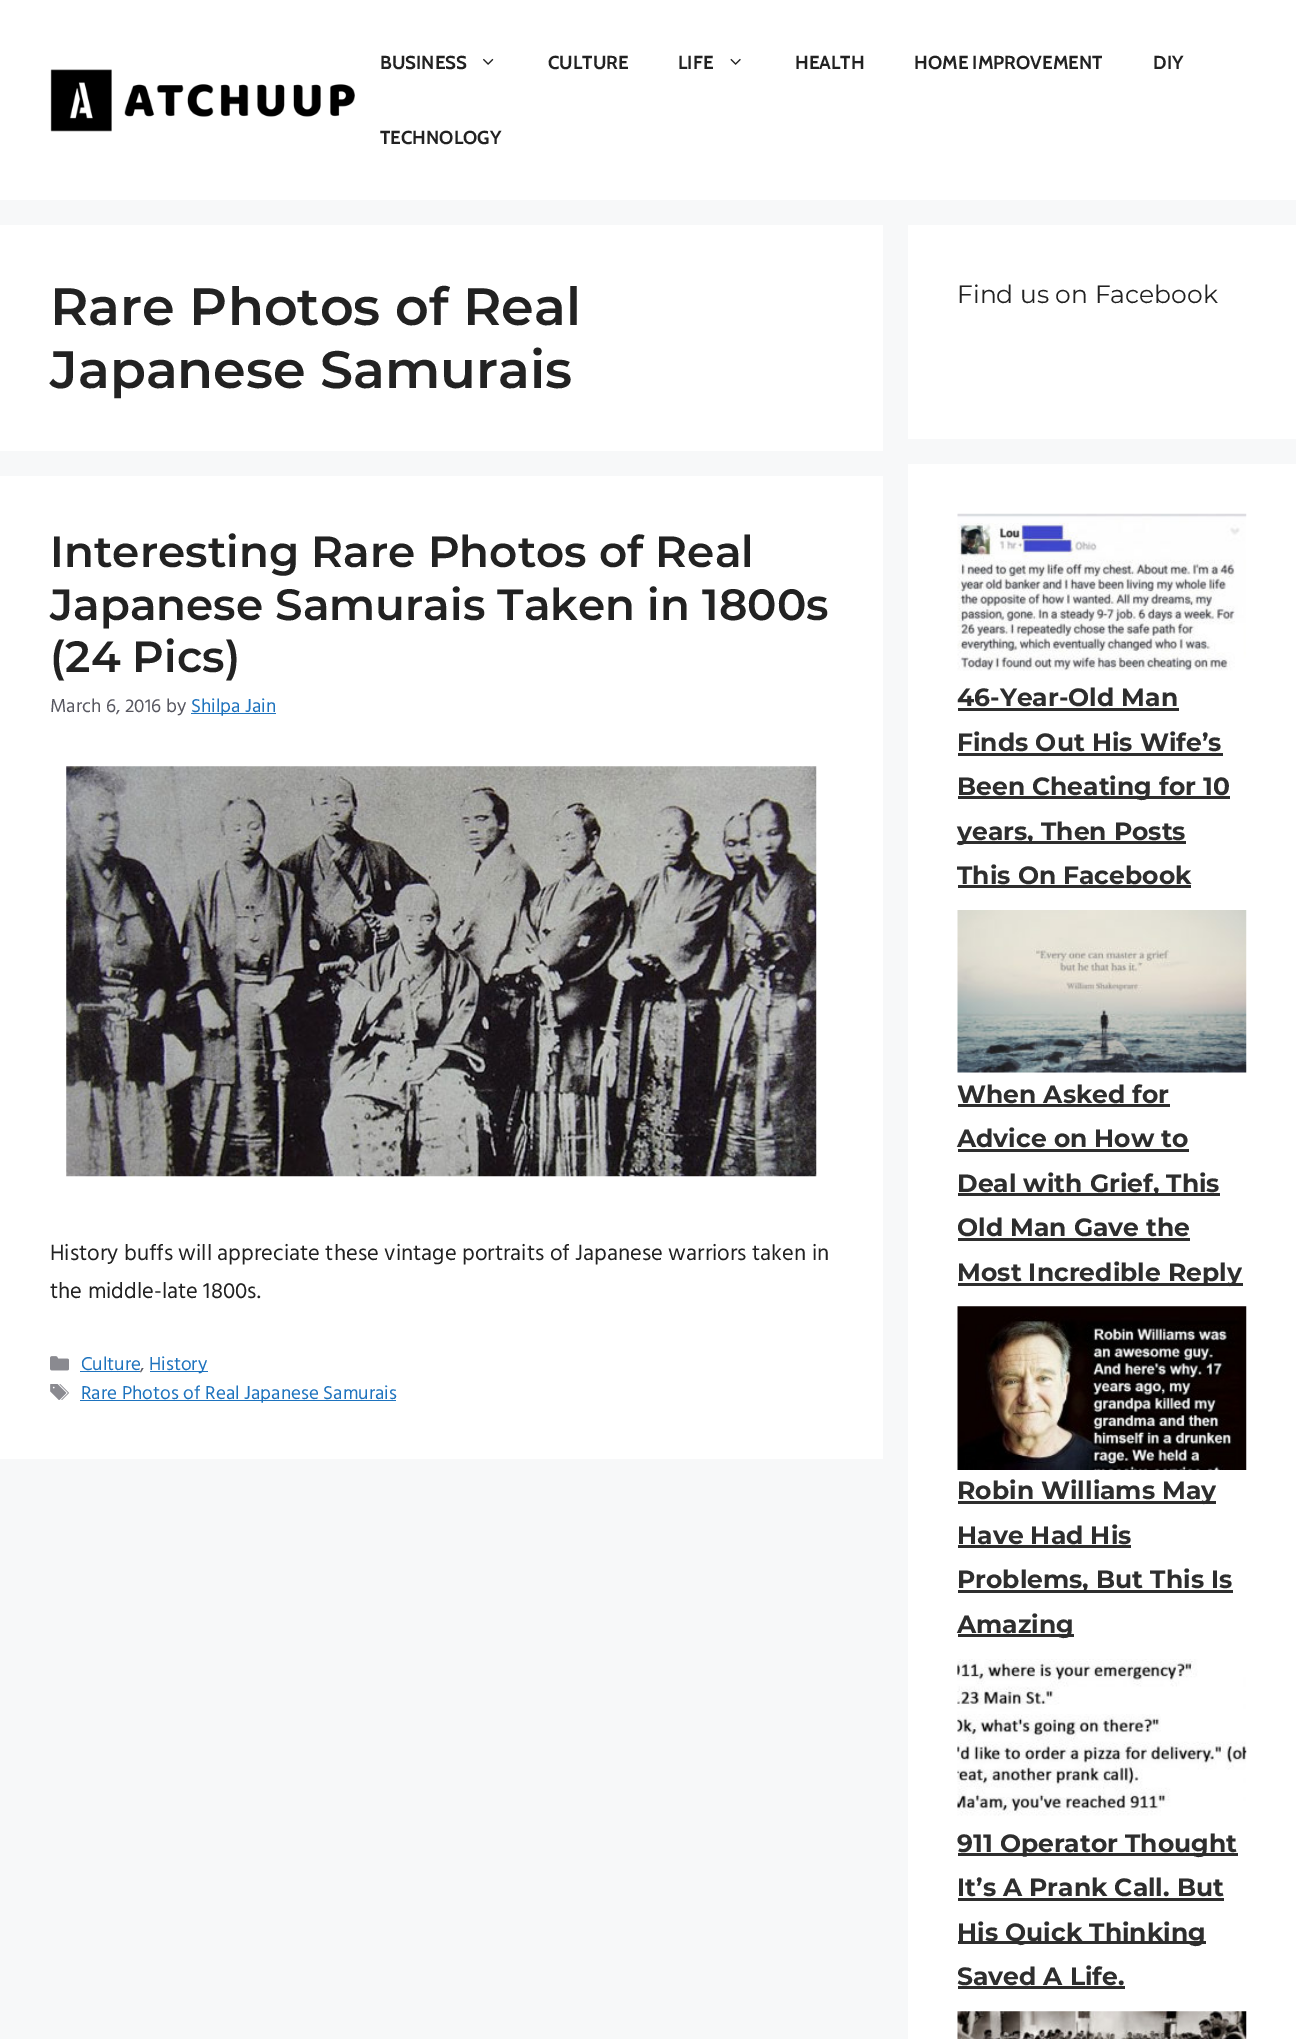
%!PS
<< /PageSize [1296 2039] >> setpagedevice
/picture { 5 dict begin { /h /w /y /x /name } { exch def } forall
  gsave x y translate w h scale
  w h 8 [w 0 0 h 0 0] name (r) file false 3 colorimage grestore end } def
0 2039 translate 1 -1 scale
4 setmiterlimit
0.969 0.973 0.976 setrgbcolor
0 0 1296 2039 rectfill
1 setgray
0 0 1296 200 rectfill
(img1.rgb) 50 69 305 63 picture
/Cabin-Bold [18.75 0 0 -18.75 0 0] selectfont
0.133 setgray
380 69 moveto (BUSINESS) show
(img2.rgb) 483 58 11 7 picture
548 69 moveto (CULTURE) show
678 69 moveto (LIFE) show
(img3.rgb) 730 58 11 7 picture
795 69 moveto (HEALTH) show
914 69 moveto (HOME IMPROVEMENT) show
1153 69 moveto (DIY) show
380 144 moveto (TECHNOLOGY) show
1 setgray
0 225 883 226 rectfill
/Montserrat-SemiBold [52.5 0 0 -52.5 0 0] selectfont
0.133 setgray
50 325 moveto (Rare Photos of Real) show
50 388 moveto (Japanese Samurais) show
1 setgray
0 476 883 983 rectfill
/Montserrat-SemiBold [43.75 0 0 -43.75 0 0] selectfont
0.133 setgray
50 567 moveto (Interesting Rare Photos of Real) show
50 620 moveto (Japanese Samurais Taken in 1800s) show
50 672 moveto (\(24 Pics\)) show
/Hind-Regular [19.1 0 0 -19.1 0 0] selectfont
0.341 0.341 0.376 setrgbcolor
50 712 moveto (March 6, 2016 by) show
0.118 0.451 0.745 setrgbcolor
191 713 85 1 rectfill
191 712 moveto (Shilpa Jain) show
(img4.rgb) 66 766 751 411 picture
/Hind-Regular [22.5 0 0 -22.5 0 0] selectfont
0.133 setgray
50 1260 moveto (History buffs will appreciate these vintage portraits of Japanese warriors taken in) show
50 1298 moveto (the middle-late 1800s.) show
(img5.rgb) 50 1356 19 15 picture
/Hind-Regular [19.1 0 0 -19.1 0 0] selectfont
0.118 0.451 0.745 setrgbcolor
81 1370 moveto (Culture) show
80 1371 60 1 rectfill
0.341 0.341 0.376 setrgbcolor
140 1370 moveto (,) show
0.118 0.451 0.745 setrgbcolor
150 1371 58 1 rectfill
149 1370 moveto (History) show
(img6.rgb) 50 1384 19 16 picture
80 1400 316 1 rectfill
81 1399 moveto (Rare Photos of Real Japanese Samurais) show
1 setgray
908 225 388 214 rectfill
/Montserrat-Regular [25 0 0 -25 0 0] selectfont
0.133 setgray
957 303 moveto (Find us on Facebook) show
1 setgray
908 464 388 1575 rectfill
(img7.rgb) 957 513 290 158 picture
/Montserrat-Bold [25 0 0 -25 0 0] selectfont
0.18 setgray
957 706 moveto (46-Year-Old Man) show
958 708 221 3 rectfill
957 751 moveto (Finds Out His Wife’s) show
958 753 265 3 rectfill
958 796 272 3 rectfill
957 795 moveto (Been Cheating for 10) show
958 841 228 3 rectfill
957 840 moveto (years, Then Posts) show
957 884 moveto (This On Facebook) show
958 885 233 3 rectfill
(img8.rgb) 957 910 290 163 picture
957 1103 moveto (When Asked for) show
958 1104 212 3 rectfill
957 1147 moveto (Advice on How to) show
958 1149 231 3 rectfill
958 1193 262 3 rectfill
957 1192 moveto (Deal with Grief, This) show
957 1236 moveto (Old Man Gave the) show
958 1238 232 3 rectfill
958 1283 285 3 rectfill
957 1281 moveto (Most Incredible Reply) show
(img9.rgb) 957 1306 290 164 picture
958 1501 258 3 rectfill
957 1499 moveto (Robin Williams May) show
957 1544 moveto (Have Had His) show
958 1545 173 3 rectfill
958 1590 275 3 rectfill
957 1588 moveto (Problems, But This Is) show
958 1634 116 3 rectfill
957 1633 moveto (Amazing) show
(img10.rgb) 957 1659 290 157 picture
958 1853 280 3 rectfill
957 1852 moveto (911 Operator Thought) show
957 1896 moveto (It’s A Prank Call. But) show
958 1898 266 3 rectfill
958 1941 248 3 rectfill
957 1941 moveto (His Quick Thinking) show
957 1985 moveto (Saved A Life.) show
958 1986 167 3 rectfill
(img11.rgb) 957 2011 290 28 picture
showpage
